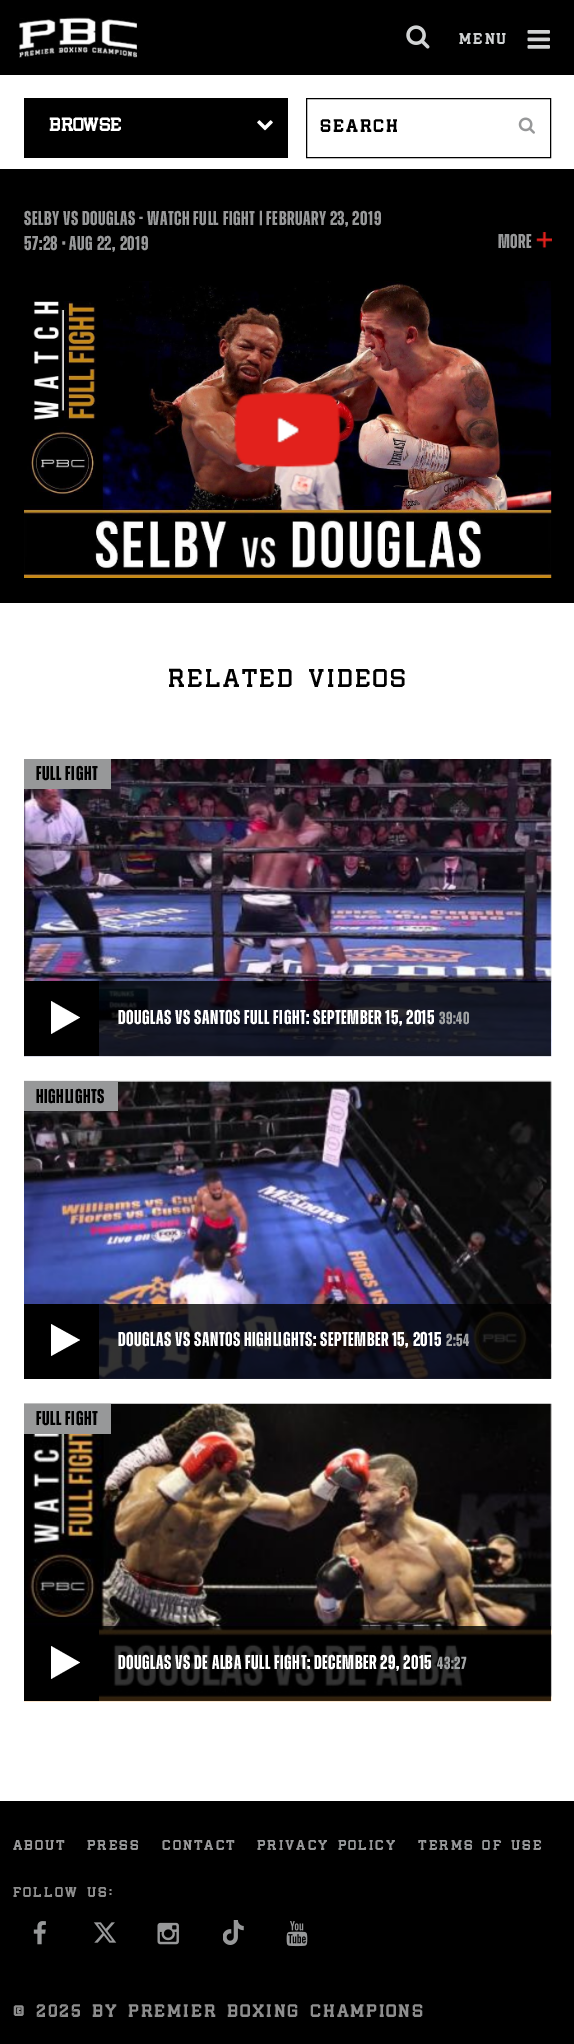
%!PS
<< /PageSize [574 2044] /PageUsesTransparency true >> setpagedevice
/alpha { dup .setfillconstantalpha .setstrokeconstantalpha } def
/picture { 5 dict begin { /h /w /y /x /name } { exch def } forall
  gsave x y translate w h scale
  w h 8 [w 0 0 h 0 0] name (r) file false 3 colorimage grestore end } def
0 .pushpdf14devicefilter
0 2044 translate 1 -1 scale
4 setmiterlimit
1 setgray
0 0 574 2044 rectfill
0 setgray
0 0 574 75 rectfill
(img1.rgb) 19 17 120 42 picture
(img2.rgb) 406 25 24 24 picture
/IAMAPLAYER-Bold [15 0 0 -15 0 0] selectfont
0.82 0.827 0.831 setrgbcolor
459 44 moveto 2.5 0 (MENU) ashow
(img3.rgb) 527 30 23 19 picture
0 setgray
24 98 264 60 rectfill
/IAMAPLAYER-Bold [18.5 0 0 -18.5 0 0] selectfont
1 setgray
49 131 moveto 0.5 0 (BROWSE) ashow
(img4.rgb) 257 120 16 11 picture
0 setgray
306.5 98.5 244 59 rectstroke
/IAMAPLAYER-Bold [17.5 0 0 -17.5 0 0] selectfont
320 132 moveto 2.5 0 (SEARCH) ashow
(img5.rgb) 518 117 17 17 picture
0 169 574 434 rectfill
/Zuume-Bold [20 0 0 -20 0 0] selectfont
0.592 0.596 0.6 setrgbcolor
24 225 moveto 0.5 0 (SELBY VS DOUGLAS - WATCH FULL FIGHT | FEBRUARY 23, 2019) ashow
24 250 moveto 0.5 0 (57:28 • AUG 22, 2019) ashow
498 248 moveto 0.5 0 (MORE) ashow
(img6.rgb) 536 232 16 16 picture
(img7.rgb) 24 281 528 297 picture
(img8.rgb) 234 392 107 76 picture
/IAMAPLAYER-Regular [25.75 0 0 -25.75 0 0] selectfont
0 setgray
168 687 moveto 2.5 0 (RELATED VIDEOS) ashow
(img9.rgb) 24 759 528 298 picture
0.592 0.596 0.6 setrgbcolor
24 759 87 30 rectfill
/Zuume-Bold [20 0 0 -20 0 0] selectfont
0 setgray
36 780 moveto 0.5 0 (FULL FIGHT) ashow
0.8 alpha
99 981 452 75 rectfill
1 alpha
24 981 75 75 rectfill
1 setgray
newpath 51 1034 moveto 51 1001 lineto 80 1017.5 lineto closepath fill
118 1024 moveto 0.5 0 (DOUGLAS VS SANTOS FULL FIGHT: SEPTEMBER 15, 2015) ashow
/Zuume-Bold [17.5 0 0 -17.5 0 0] selectfont
0.631 0.639 0.643 setrgbcolor
439 1024 moveto 0.5 0 (39:40) ashow
(img10.rgb) 24 1080 528 299 picture
0.592 0.596 0.6 setrgbcolor
24 1081 94 30 rectfill
/Zuume-Bold [20 0 0 -20 0 0] selectfont
0 setgray
36 1103 moveto 0.5 0 (HIGHLIGHTS) ashow
0.8 alpha
99 1304 452 75 rectfill
1 alpha
24 1304 75 75 rectfill
1 setgray
newpath 51 1356 moveto 51 1324 lineto 80 1340 lineto closepath fill
118 1346 moveto 0.5 0 (DOUGLAS VS SANTOS HIGHLIGHTS: SEPTEMBER 15, 2015) ashow
/Zuume-Bold [17.5 0 0 -17.5 0 0] selectfont
0.631 0.639 0.643 setrgbcolor
446 1346 moveto 0.5 0 (2:54) ashow
(img11.rgb) 24 1403 528 299 picture
0.592 0.596 0.6 setrgbcolor
24 1404 87 30 rectfill
/Zuume-Bold [20 0 0 -20 0 0] selectfont
0 setgray
36 1425 moveto 0.5 0 (FULL FIGHT) ashow
0.8 alpha
99 1626 452 75 rectfill
1 alpha
24 1627 75 74 rectfill
1 setgray
newpath 51 1679 moveto 51 1646 lineto 80 1662.5 lineto closepath fill
118 1669 moveto 0.5 0 (DOUGLAS VS DE ALBA FULL FIGHT: DECEMBER 29, 2015) ashow
/Zuume-Bold [17.5 0 0 -17.5 0 0] selectfont
0.631 0.639 0.643 setrgbcolor
437 1669 moveto 0.5 0 (43:27) ashow
0 setgray
0 1801 574 243 rectfill
/IAMAPLAYER-Bold [13.75 0 0 -13.75 0 0] selectfont
0.592 0.596 0.6 setrgbcolor
13 1850 moveto 2.5 0 (ABOUT) ashow
87 1850 moveto 2.5 0 (PRESS) ashow
162 1850 moveto 2.5 0 (CONTACT) ashow
257 1850 moveto 2.5 0 (PRIVACY POLICY) ashow
418 1850 moveto 2.5 0 (TERMS OF USE) ashow
0.553 setgray
13 1897 moveto 2.5 0 (FOLLOW US:) ashow
(img12.rgb) 33 1921 13 24 picture
(img13.rgb) 93 1922 24 21 picture
(img14.rgb) 157 1922 22 23 picture
(img15.rgb) 223 1920 21 25 picture
(img16.rgb) 286 1921 22 26 picture
/IAMAPLAYER-Bold [17.5 0 0 -17.5 0 0] selectfont
13 2017 moveto 2.5 0 (© 2025 BY PREMIER BOXING CHAMPIONS) ashow
.poppdf14devicefilter showpage
